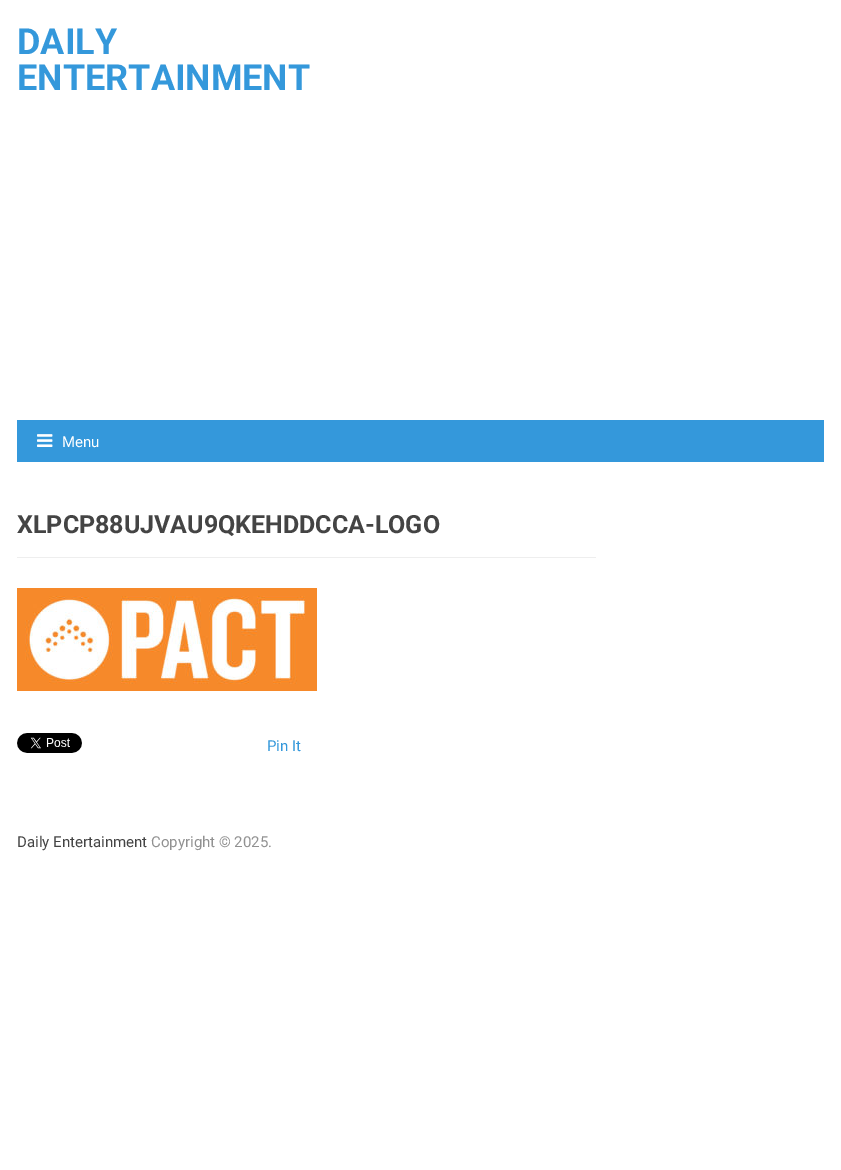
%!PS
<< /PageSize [841 1170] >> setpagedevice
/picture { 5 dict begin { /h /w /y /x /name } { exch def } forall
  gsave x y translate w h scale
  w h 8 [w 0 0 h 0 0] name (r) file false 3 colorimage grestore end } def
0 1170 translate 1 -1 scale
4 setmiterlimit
1 setgray
0 0 841 1170 rectfill
/Roboto-Bold [36 0 0 -36 0 0] selectfont
0.204 0.596 0.859 setrgbcolor
17 54 moveto (DAILY) show
17 90 moveto (ENTERTAINMENT) show
17 420 807 42 rectfill
(img1.rgb) 37 434 16 13 picture
/Roboto-Regular [15 0 0 -15 0 0] selectfont
1 setgray
62 447 moveto (Menu) show
0.933 setgray
17 557 579 1 rectfill
/Roboto-Bold [25 0 0 -25 0 0] selectfont
0.267 setgray
17 533 moveto (XLPCP88UJVAU9QKEHDDCCA-LOGO) show
(img2.rgb) 17 588 300 103 picture
(img3.rgb) 17 733 65 20 picture
/Roboto-Regular [15 0 0 -15 0 0] selectfont
0.204 0.596 0.859 setrgbcolor
267 751 moveto (Pin It) show
0.267 setgray
17 847 moveto (Daily Entertainment) show
0.569 setgray
151 847 moveto (Copyright © 2025.) show
showpage
